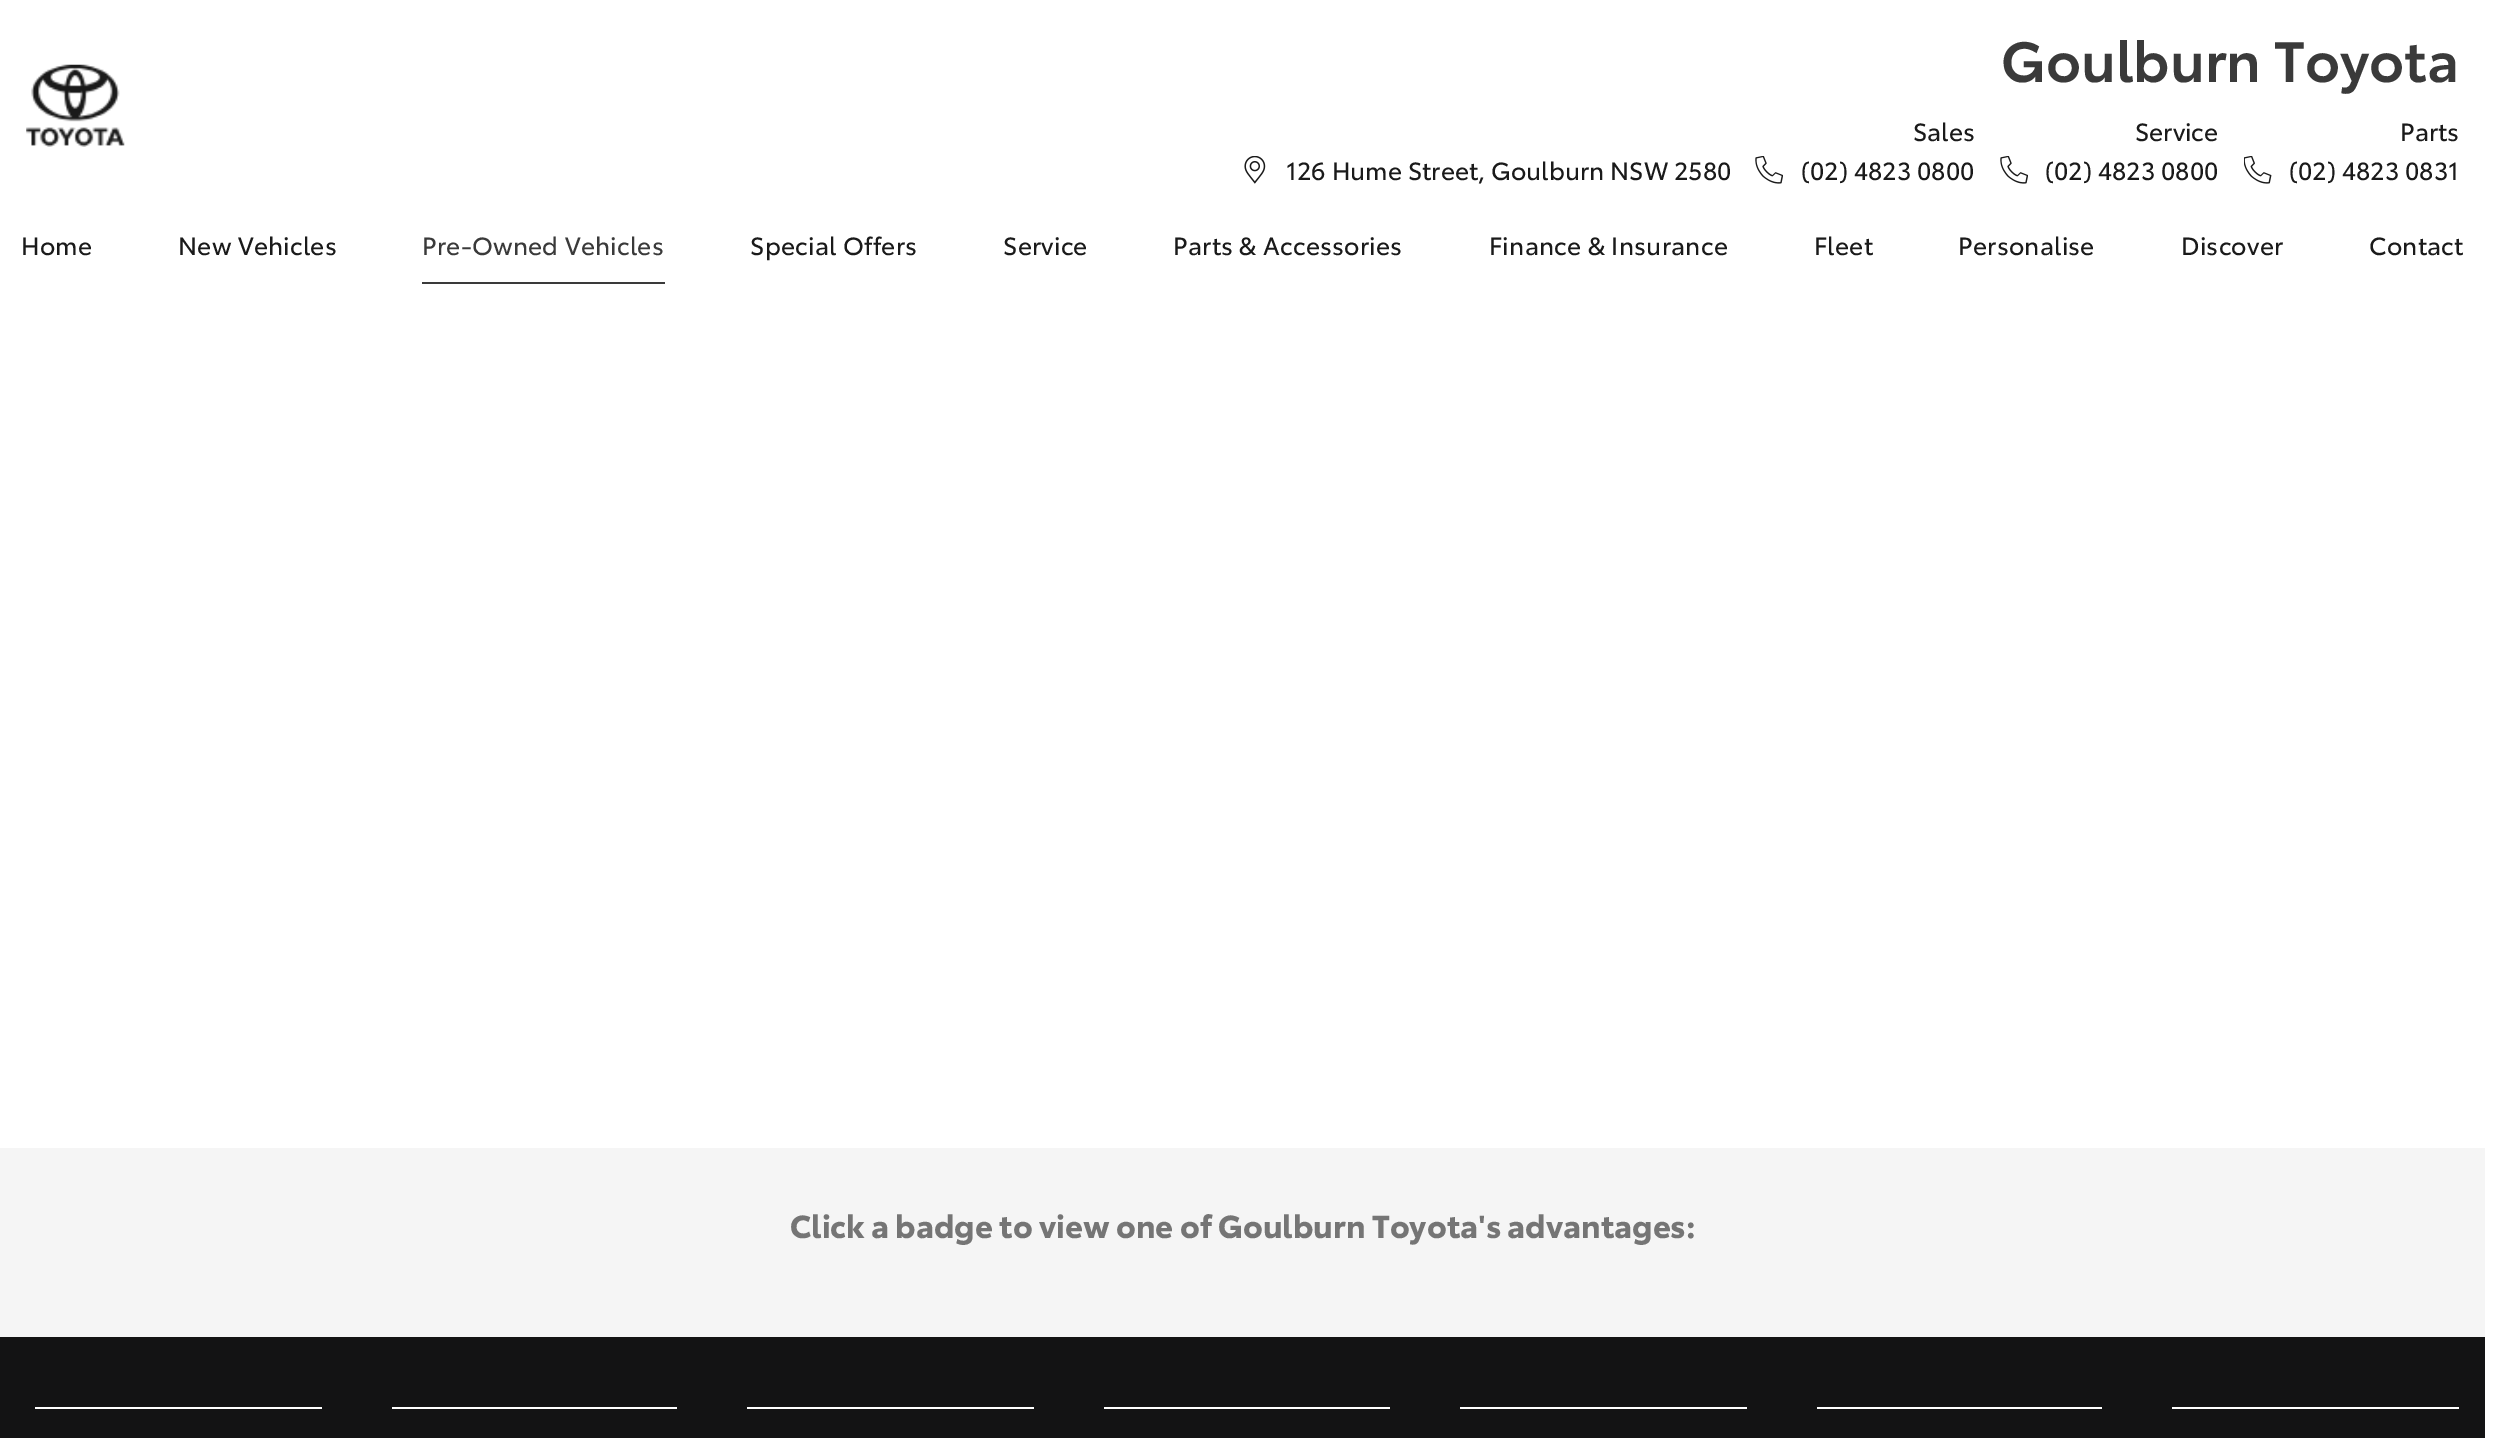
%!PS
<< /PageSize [2510 1438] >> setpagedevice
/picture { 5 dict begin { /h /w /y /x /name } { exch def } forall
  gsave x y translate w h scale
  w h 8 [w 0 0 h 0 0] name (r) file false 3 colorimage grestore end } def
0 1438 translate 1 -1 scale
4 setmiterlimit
1 setgray
0 0 2510 1438 rectfill
(img1.rgb) 26 64 99 83 picture
/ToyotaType-SemiBold [56 0 0 -56 0 0] selectfont
0.227 setgray
2001 82 moveto (Goulburn Toyota) show
(img2.rgb) 1244 156 22 28 picture
/ToyotaType-Regular [24.5 0 0 -24.5 0 0] selectfont
0.102 setgray
1286 180 moveto (126 Hume Street, Goulburn NSW 2580) show
1913 141 moveto (Sales) show
(img3.rgb) 1755 156 28 28 picture
1801 180 moveto (\(02\) 4823 0800) show
2135 141 moveto (Service) show
(img3.rgb) 2000 156 28 28 picture
2045 180 moveto (\(02\) 4823 0800) show
2400 141 moveto (Parts) show
(img4.rgb) 2244 156 28 28 picture
2289 180 moveto (\(02\) 4823 0831) show
21 255 moveto 0.25 0 (Home) ashow
178 255 moveto 0.25 0 (New Vehicles) ashow
0.227 setgray
422 255 moveto 0.25 0 (Pre-Owned Vehicles) ashow
422 282 243 2 rectfill
0.102 setgray
750 255 moveto 0.25 0 (Special Offers) ashow
1003 255 moveto 0.25 0 (Service) ashow
1173 255 moveto 0.25 0 (Parts & Accessories) ashow
1489 255 moveto 0.25 0 (Finance & Insurance) ashow
1814 255 moveto 0.25 0 (Fleet) ashow
1958 255 moveto 0.25 0 (Personalise) ashow
2181 255 moveto 0.25 0 (Discover) ashow
2369 255 moveto 0.25 0 (Contact) ashow
0.961 setgray
0 1148 2485 189 rectfill
/ToyotaType-Bold [31.5 0 0 -31.5 0 0] selectfont
0.459 setgray
790 1238 moveto (Click a badge to view one of Goulburn Toyota's advantages:) show
0.075 0.075 0.078 setrgbcolor
0 1337 2485 101 rectfill
1 setgray
35 1407 287 2 rectfill
392 1407 285 2 rectfill
747 1407 287 2 rectfill
1104 1407 286 2 rectfill
1460 1407 287 2 rectfill
1817 1407 285 2 rectfill
2172 1407 287 2 rectfill
showpage
